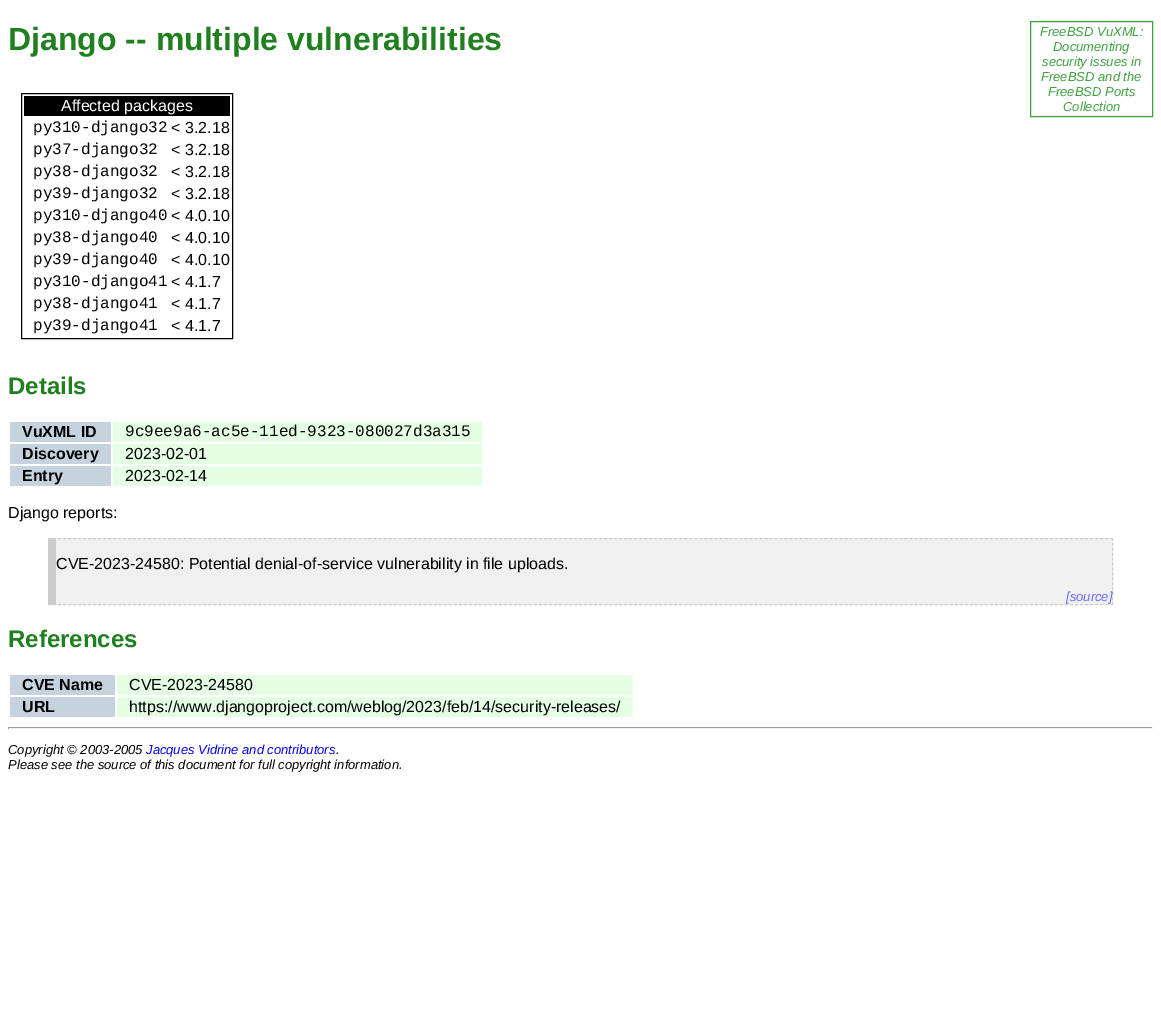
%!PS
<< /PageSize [1161 1024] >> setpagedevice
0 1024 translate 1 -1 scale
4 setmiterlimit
1 setgray
0 0 1161 1024 rectfill
/LiberationSans-Bold [32 0 0 -32 0 0] selectfont
0.125 0.502 0.125 setrgbcolor
8 50 moveto (Django -- multiple vulnerabilities) show
0.251 0.627 0.251 setrgbcolor
1030.5 21.5 122 95 rectstroke
/LiberationSans-Italic [13 0 0 -13 0 0] selectfont
1040 36 moveto (FreeBSD VuXML:) show
1053 51 moveto (Documenting) show
1042 66 moveto (security issues in) show
1041 81 moveto (FreeBSD and the) show
1048 96 moveto (FreeBSD Ports) show
1063 111 moveto (Collection) show
0 setgray
21.5 93.5 211 245 rectstroke
24 96 206 20 rectfill
/LiberationSans-Regular [16 0 0 -16 0 0] selectfont
1 setgray
61 111 moveto (Affected packages) show
/LiberationMono-Regular [16 0 0 -16 0 0] selectfont
0 setgray
33 132 moveto (py310-django32) show
/LiberationSans-Regular [16 0 0 -16 0 0] selectfont
171 133 moveto (<) show
185 133 moveto (3.2.18) show
/LiberationMono-Regular [16 0 0 -16 0 0] selectfont
33 154 moveto (py37-django32) show
/LiberationSans-Regular [16 0 0 -16 0 0] selectfont
171 155 moveto (<) show
185 155 moveto (3.2.18) show
/LiberationMono-Regular [16 0 0 -16 0 0] selectfont
33 176 moveto (py38-django32) show
/LiberationSans-Regular [16 0 0 -16 0 0] selectfont
171 177 moveto (<) show
185 177 moveto (3.2.18) show
/LiberationMono-Regular [16 0 0 -16 0 0] selectfont
33 198 moveto (py39-django32) show
/LiberationSans-Regular [16 0 0 -16 0 0] selectfont
171 199 moveto (<) show
185 199 moveto (3.2.18) show
/LiberationMono-Regular [16 0 0 -16 0 0] selectfont
33 220 moveto (py310-django40) show
/LiberationSans-Regular [16 0 0 -16 0 0] selectfont
171 221 moveto (<) show
185 221 moveto (4.0.10) show
/LiberationMono-Regular [16 0 0 -16 0 0] selectfont
33 242 moveto (py38-django40) show
/LiberationSans-Regular [16 0 0 -16 0 0] selectfont
171 243 moveto (<) show
185 243 moveto (4.0.10) show
/LiberationMono-Regular [16 0 0 -16 0 0] selectfont
33 264 moveto (py39-django40) show
/LiberationSans-Regular [16 0 0 -16 0 0] selectfont
171 265 moveto (<) show
185 265 moveto (4.0.10) show
/LiberationMono-Regular [16 0 0 -16 0 0] selectfont
33 286 moveto (py310-django41) show
/LiberationSans-Regular [16 0 0 -16 0 0] selectfont
171 287 moveto (<) show
185 287 moveto (4.1.7) show
/LiberationMono-Regular [16 0 0 -16 0 0] selectfont
33 308 moveto (py38-django41) show
/LiberationSans-Regular [16 0 0 -16 0 0] selectfont
171 309 moveto (<) show
185 309 moveto (4.1.7) show
/LiberationMono-Regular [16 0 0 -16 0 0] selectfont
33 330 moveto (py39-django41) show
/LiberationSans-Regular [16 0 0 -16 0 0] selectfont
171 331 moveto (<) show
185 331 moveto (4.1.7) show
/LiberationSans-Bold [24 0 0 -24 0 0] selectfont
0.125 0.502 0.125 setrgbcolor
8 394 moveto (Details) show
0.776 0.827 0.871 setrgbcolor
10 422 101 20 rectfill
/LiberationSans-Bold [16 0 0 -16 0 0] selectfont
0 setgray
22 437 moveto (VuXML ID) show
0.898 1 0.898 setrgbcolor
113 422 369 20 rectfill
/LiberationMono-Regular [16 0 0 -16 0 0] selectfont
0 setgray
125 436 moveto (9c9ee9a6-ac5e-11ed-9323-080027d3a315) show
0.776 0.827 0.871 setrgbcolor
10 444 101 20 rectfill
/LiberationSans-Bold [16 0 0 -16 0 0] selectfont
0 setgray
22 459 moveto (Discovery) show
0.898 1 0.898 setrgbcolor
113 444 369 20 rectfill
/LiberationSans-Regular [16 0 0 -16 0 0] selectfont
0 setgray
125 459 moveto (2023-02-01) show
0.776 0.827 0.871 setrgbcolor
10 466 101 20 rectfill
/LiberationSans-Bold [16 0 0 -16 0 0] selectfont
0 setgray
22 481 moveto (Entry) show
0.898 1 0.898 setrgbcolor
113 466 369 20 rectfill
/LiberationSans-Regular [16 0 0 -16 0 0] selectfont
0 setgray
125 481 moveto (2023-02-14) show
8 518 moveto (Django reports:) show
0.941 setgray
56 538 1057 67 rectfill
0.8 setgray
[3 2.01] 0 setdash
newpath 48 538.5 moveto 1113 538.5 lineto stroke
[3 1.92] 0 setdash
newpath 1112.5 538 moveto 1112.5 605 lineto stroke
[3 2.01] 0 setdash
newpath 48 604.5 moveto 1113 604.5 lineto stroke
48 538 8 67 rectfill
0 setgray
56 569 moveto (CVE-2023-24580: Potential denial-of-service vulnerability in file uploads.) show
/LiberationSans-Italic [13 0 0 -13 0 0] selectfont
0.42 0.412 1 setrgbcolor
1066 601 moveto ([source]) show
/LiberationSans-Bold [24 0 0 -24 0 0] selectfont
0.125 0.502 0.125 setrgbcolor
8 647 moveto (References) show
0.776 0.827 0.871 setrgbcolor
10 675 105 20 rectfill
/LiberationSans-Bold [16 0 0 -16 0 0] selectfont
0 setgray
22 690 moveto (CVE Name) show
0.898 1 0.898 setrgbcolor
117 675 516 20 rectfill
/LiberationSans-Regular [16 0 0 -16 0 0] selectfont
0 setgray
129 690 moveto (CVE-2023-24580) show
0.776 0.827 0.871 setrgbcolor
10 697 105 20 rectfill
/LiberationSans-Bold [16 0 0 -16 0 0] selectfont
0 setgray
22 712 moveto (URL) show
0.898 1 0.898 setrgbcolor
117 697 516 20 rectfill
/LiberationSans-Regular [16 0 0 -16 0 0] selectfont
0 setgray
129 712 moveto (https://www.djangoproject.com/weblog/2023/feb/14/security-releases/) show
0.624 setgray
8 727 1145 1 rectfill
0.933 setgray
1152 727 1 2 rectfill
8 728 1145 1 rectfill
0.624 setgray
8 727 1 2 rectfill
/LiberationSans-Italic [13 0 0 -13 0 0] selectfont
0 setgray
8 754 moveto (Copyright © 2003-2005) show
0 0 0.937 setrgbcolor
146 754 moveto (Jacques Vidrine and contributors) show
0 setgray
336 754 moveto (.) show
8 769 moveto (Please see the source of this document for full copyright information.) show
showpage
